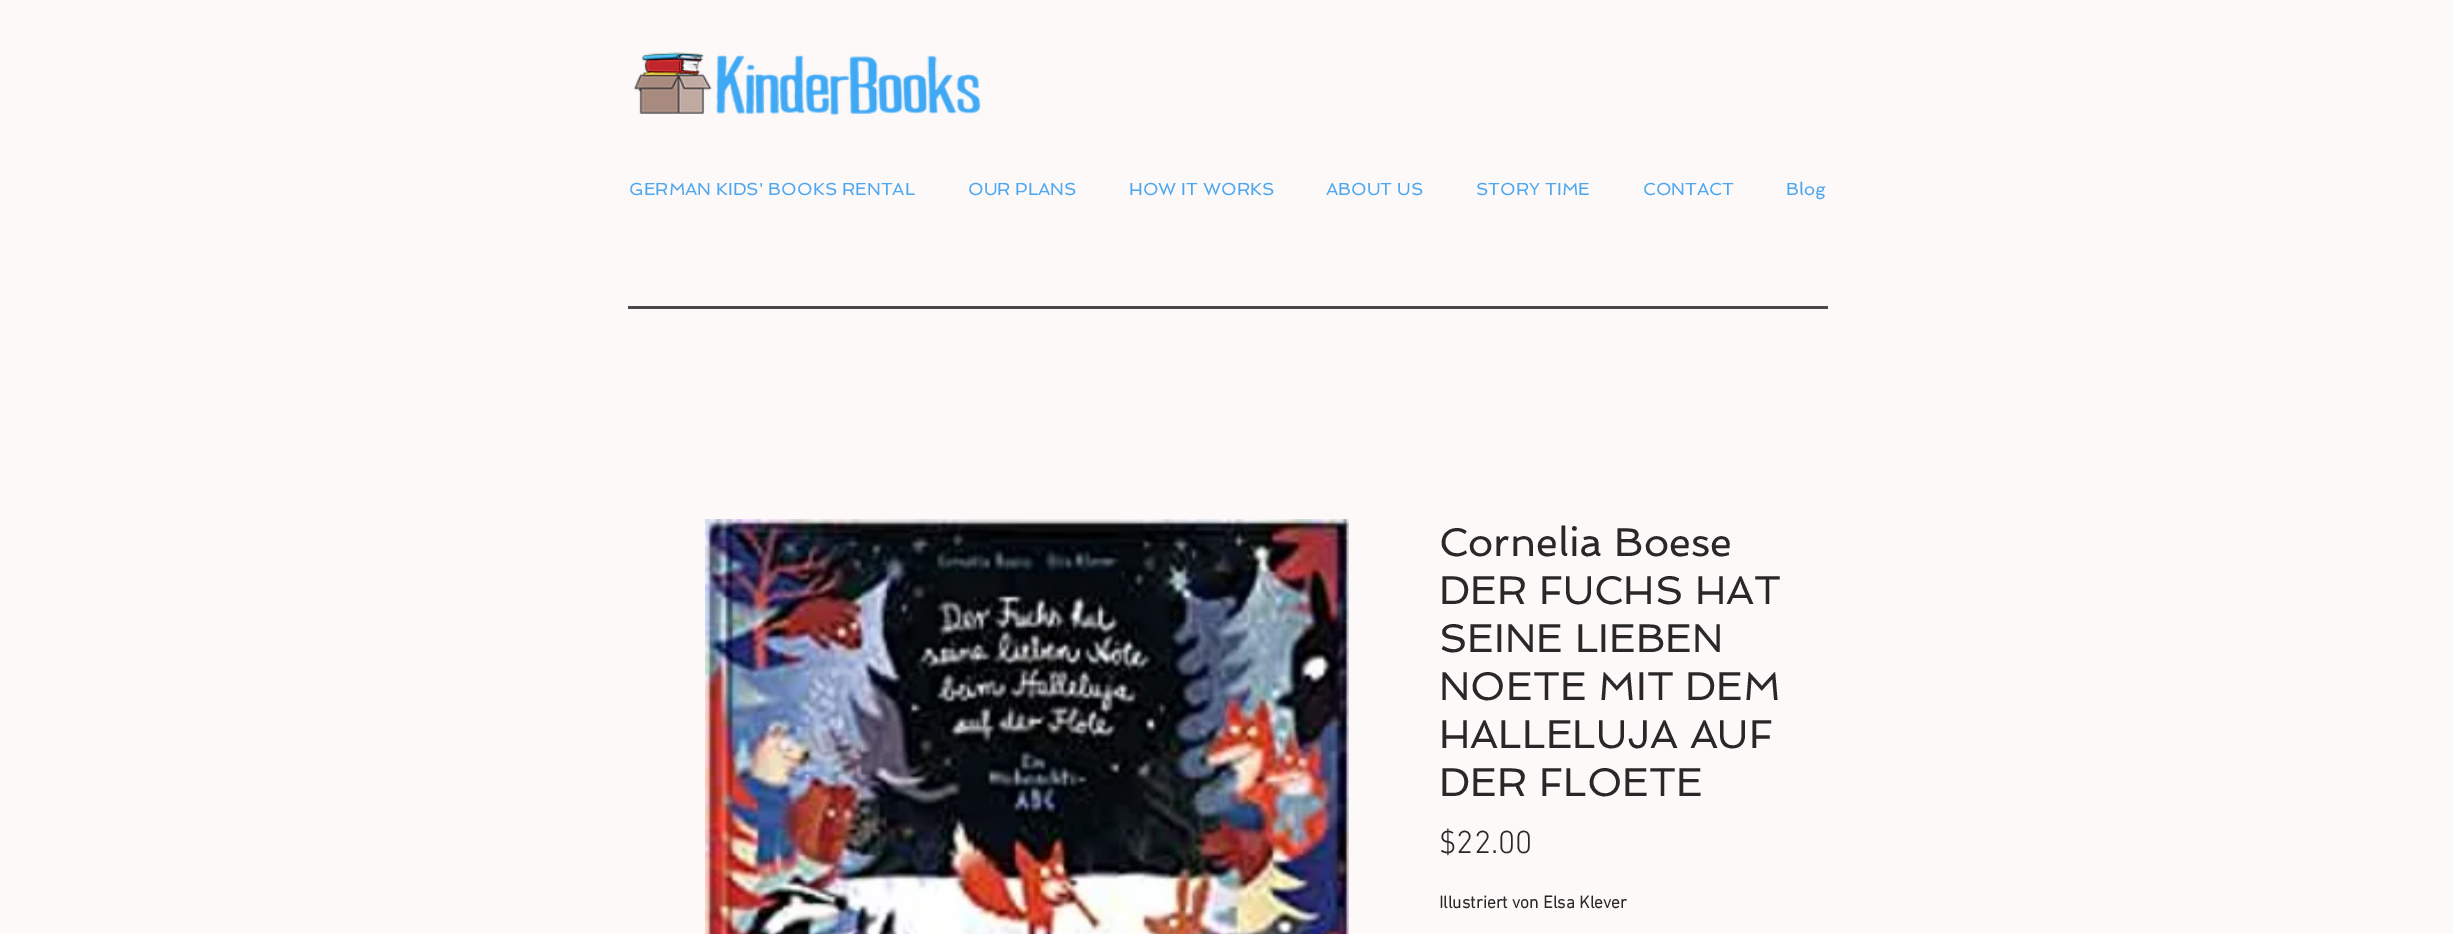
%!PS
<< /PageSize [2453 934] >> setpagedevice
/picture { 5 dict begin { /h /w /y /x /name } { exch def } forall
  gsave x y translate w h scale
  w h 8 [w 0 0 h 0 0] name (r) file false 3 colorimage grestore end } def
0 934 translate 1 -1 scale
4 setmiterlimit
0.988 0.976 0.973 setrgbcolor
0 0 2453 934 rectfill
(img1.rgb) 633 52 348 64 picture
/Spinnaker-Regular [17.5 0 0 -17.5 0 0] selectfont
0.298 0.651 0.941 setrgbcolor
629 195 moveto (GERMAN KIDS' BOOKS RENTAL) show
968 195 moveto (OUR PLANS) show
1129 195 moveto (HOW IT WORKS) show
1326 195 moveto (ABOUT US) show
1476 195 moveto (STORY TIME) show
1643 195 moveto (CONTACT) show
1786 195 moveto (Blog) show
0.286 setgray
628 306 1200 3 rectfill
(img2.rgb) 705 519 644 415 picture
/Spinnaker-Regular [40 0 0 -40 0 0] selectfont
0.157 setgray
1439 556 moveto (Cornelia Boese) show
1439 604 moveto (DER FUCHS HAT) show
1439 652 moveto (SEINE LIEBEN) show
1439 700 moveto (NOETE MIT DEM) show
1439 748 moveto (HALLELUJA AUF) show
1439 796 moveto (DER FLOETE) show
/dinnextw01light-Light [32.5 0 0 -32.5 0 0] selectfont
1439 853 moveto ($22.00) show
/dinnextw01light-Bold [17.5 0 0 -17.5 0 0] selectfont
1439 908 moveto (Illustriert von Elsa Klever) show
showpage
